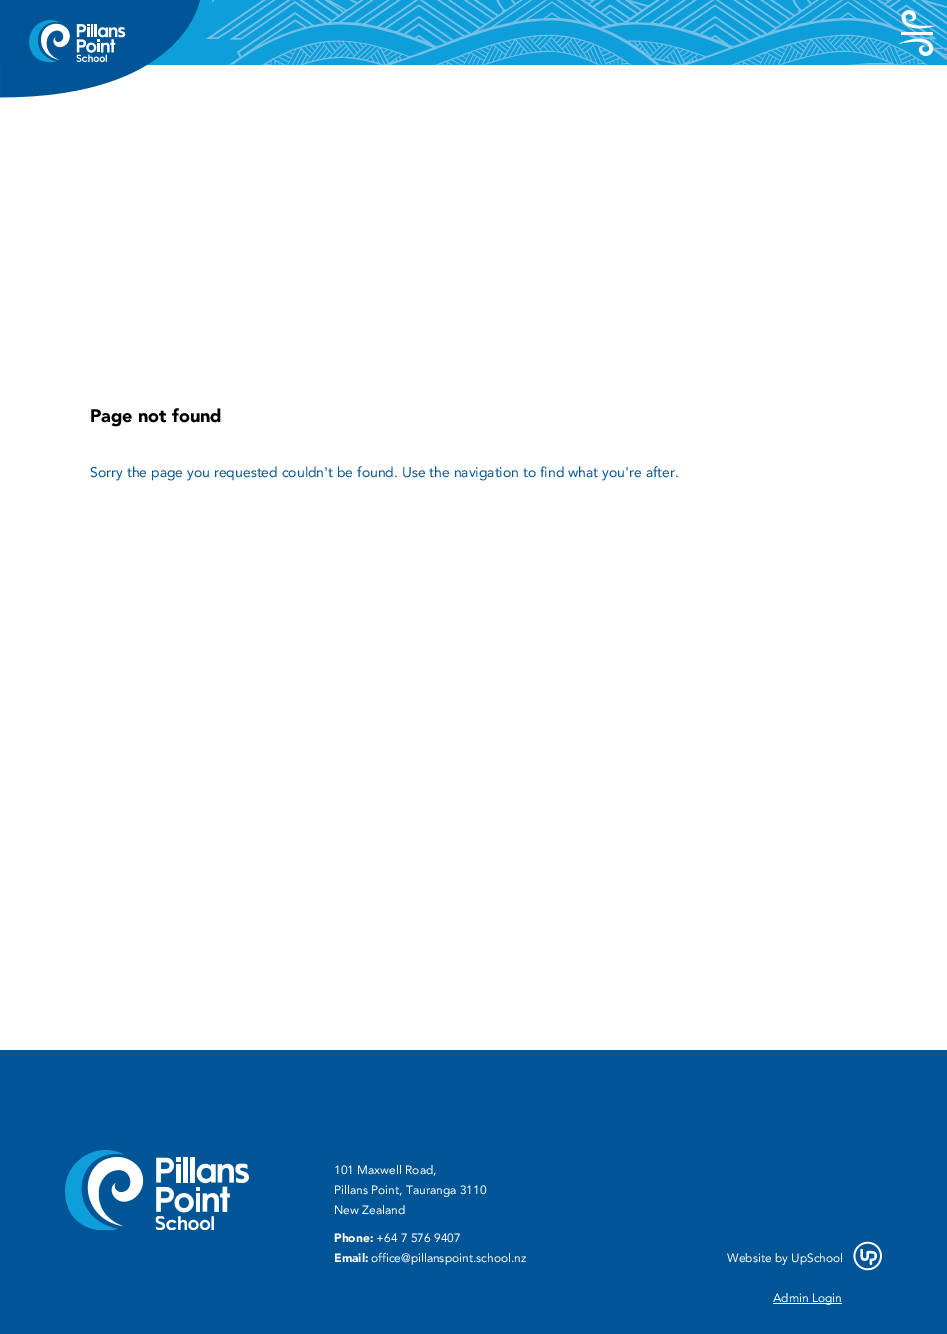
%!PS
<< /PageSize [947 1334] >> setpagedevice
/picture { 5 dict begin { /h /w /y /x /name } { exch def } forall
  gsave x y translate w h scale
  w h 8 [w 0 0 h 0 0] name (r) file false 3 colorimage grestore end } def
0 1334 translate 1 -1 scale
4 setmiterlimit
1 setgray
0 0 947 1334 rectfill
0.055 0.62 0.851 setrgbcolor
0 0 947 65 rectfill
(img1.rgb) 206 0 741 65 picture
(img2.rgb) 0 0 200 98 picture
(img3.rgb) 898 10 38 46 picture
/Avenir-Black [18 0 0 -18 0 0] selectfont
0 setgray
90 422 moveto (Page not found) show
/Avenir-Regular [14 0 0 -14 0 0] selectfont
0 0.333 0.588 setrgbcolor
90 477 moveto (Sorry the page you requested couldn't be found. Use the navigation to find what you're after.) show
0 1050 947 284 rectfill
(img4.rgb) 65 1150 184 80 picture
/Avenir-Regular [12 0 0 -12 0 0] selectfont
1 setgray
334 1174 moveto (101 Maxwell Road,) show
334 1194 moveto (Pillans Point, Tauranga 3110) show
334 1214 moveto (New Zealand) show
/Avenir-Black [12 0 0 -12 0 0] selectfont
334 1242 moveto (Phone:) show
/Avenir-Regular [12 0 0 -12 0 0] selectfont
376 1242 moveto (+64 7 576 9407) show
/Avenir-Black [12 0 0 -12 0 0] selectfont
334 1262 moveto (Email:) show
/Avenir-Regular [12 0 0 -12 0 0] selectfont
371 1262 moveto (office@pillanspoint.school.nz) show
(img5.rgb) 853 1241 29 30 picture
727 1262 moveto (Website by UpSchool) show
773 1303 69 1 rectfill
773 1302 moveto (Admin Login) show
showpage
